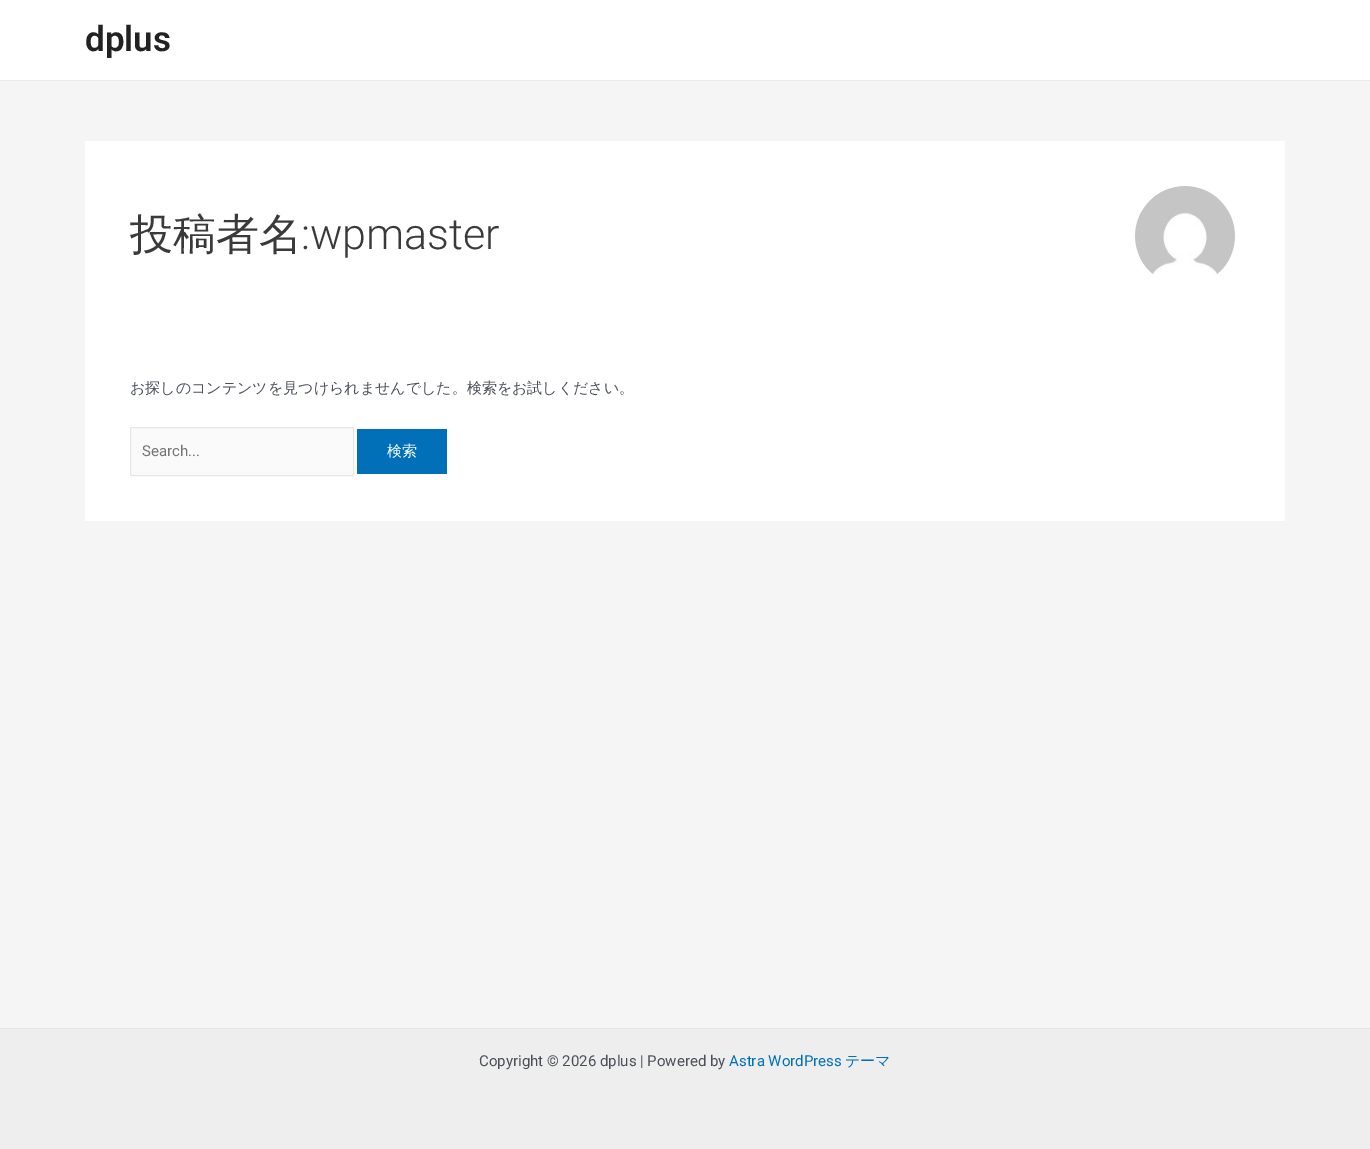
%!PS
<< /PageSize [1370 1149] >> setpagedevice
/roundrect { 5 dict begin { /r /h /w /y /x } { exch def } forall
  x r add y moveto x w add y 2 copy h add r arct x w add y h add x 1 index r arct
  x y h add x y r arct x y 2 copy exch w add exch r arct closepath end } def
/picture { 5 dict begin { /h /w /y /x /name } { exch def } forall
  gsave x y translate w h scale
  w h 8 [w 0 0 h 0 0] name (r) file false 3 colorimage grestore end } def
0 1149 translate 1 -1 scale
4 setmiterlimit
0.961 setgray
0 0 1370 1149 rectfill
1 setgray
0 0 1370 80 rectfill
0.918 setgray
0 80 1370 1 rectfill
/Roboto-SemiBold [35 0 0 -35 0 0] selectfont
0.133 setgray
85 51 moveto (dplus) show
1 setgray
85 141 1200 380 rectfill
/WenQuanYiZenHei-Medium [43 0 0 -43 0 0] selectfont
0.227 setgray
130 249 moveto (投稿者名) show
/Roboto-Light [43 0 0 -43 0 0] selectfont
301 249 moveto (:wpmaster) show
(img1.rgb) 1135 186 100 89 picture
/WenQuanYiZenHei-Medium [15 0 0 -15 0 0] selectfont
0.294 0.31 0.345 setrgbcolor
130 393 moveto (お探しのコンテンツを見つけられませんでした。検索をお試しください。) show
0.98 setgray
130.5 427.5 223 48 1.5 roundrect gsave fill grestore
0.898 setgray
stroke
/Roboto-Regular [15 0 0 -15 0 0] selectfont
0.459 setgray
142 456 moveto (Search...) show
0.004 0.439 0.725 setrgbcolor
357 429 90 45 rectfill
/WenQuanYiZenHei-Medium [15 0 0 -15 0 0] selectfont
1 setgray
387 456 moveto (検索) show
0.933 setgray
0 1029 1370 120 rectfill
0.898 setgray
0 1028 1370 1 rectfill
/Roboto-Regular [15 0 0 -15 0 0] selectfont
0.294 0.31 0.345 setrgbcolor
479 1066 moveto (Copyright © 2026 dplus | Powered by) show
0.004 0.439 0.725 setrgbcolor
729 1066 moveto (Astra WordPress) show
/WenQuanYiZenHei-Medium [15 0 0 -15 0 0] selectfont
845 1066 moveto (テーマ) show
showpage
